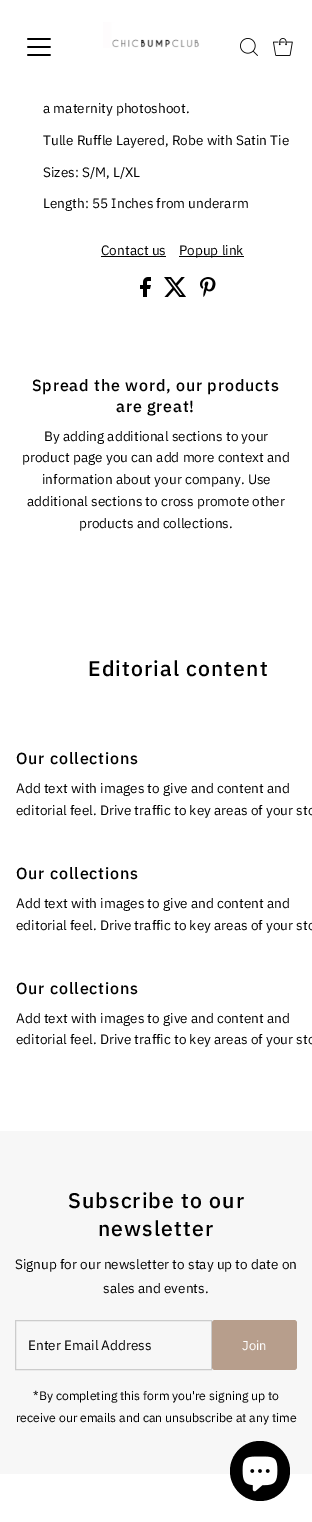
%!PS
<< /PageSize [312 1522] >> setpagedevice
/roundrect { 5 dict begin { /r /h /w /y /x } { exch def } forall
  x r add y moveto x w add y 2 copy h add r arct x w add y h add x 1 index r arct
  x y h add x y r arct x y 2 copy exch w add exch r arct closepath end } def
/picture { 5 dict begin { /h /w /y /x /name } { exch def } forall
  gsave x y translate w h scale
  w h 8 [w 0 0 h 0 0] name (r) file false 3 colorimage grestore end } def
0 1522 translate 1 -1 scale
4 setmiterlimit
1 setgray
0 0 312 1522 rectfill
(img1.rgb) 27 38 24 18 picture
(img2.rgb) 103 22 97 26 picture
(img3.rgb) 240 38 18 18 picture
(img4.rgb) 273 38 20 18 picture
/IBMPlexSans-Regular [13.6 0 0 -13.6 0 0] selectfont
0 setgray
43 113 moveto (a maternity photoshoot.) show
43 145 moveto (Tulle Ruffle Layered, Robe with Satin Tie) show
43 177 moveto (Sizes: S/M, L/XL) show
43 208 moveto (Length: 55 Inches from underarm) show
101 255 moveto (Contact us) show
101 256 65 1 rectfill
179 256 65 1 rectfill
179 255 moveto (Popup link) show
(img5.rgb) 140 277 11 20 picture
(img6.rgb) 164 277 22 20 picture
(img7.rgb) 200 277 16 20 picture
/IBMPlexSans-Medium [16.1 0 0 -16.1 0 0] selectfont
32 391 moveto 0.8 0 (Spread the word, our products) ashow
116 412 moveto 0.8 0 (are great!) ashow
/IBMPlexSans-Regular [13.6 0 0 -13.6 0 0] selectfont
44 441 moveto (By adding additional sections to your) show
22 462 moveto (product page you can add more context and) show
42 484 moveto (information about your company. Use) show
27 506 moveto (additional sections to cross promote other) show
79 528 moveto (products and collections.) show
/IBMPlexSans-Medium [21.25 0 0 -21.25 0 0] selectfont
88 676 moveto 1.1 0 (Editorial content) ashow
/IBMPlexSans-Medium [16.1 0 0 -16.1 0 0] selectfont
16 764 moveto 0.8 0 (Our collections) ashow
/IBMPlexSans-Regular [13.6 0 0 -13.6 0 0] selectfont
16 793 moveto (Add text with images to give and content and) show
16 815 moveto (editorial feel. Drive traffic to key areas of your sto) show
/IBMPlexSans-Medium [16.1 0 0 -16.1 0 0] selectfont
16 879 moveto 0.8 0 (Our collections) ashow
/IBMPlexSans-Regular [13.6 0 0 -13.6 0 0] selectfont
16 908 moveto (Add text with images to give and content and) show
16 930 moveto (editorial feel. Drive traffic to key areas of your sto) show
/IBMPlexSans-Medium [16.1 0 0 -16.1 0 0] selectfont
16 994 moveto 0.8 0 (Our collections) ashow
/IBMPlexSans-Regular [13.6 0 0 -13.6 0 0] selectfont
16 1023 moveto (Add text with images to give and content and) show
16 1044 moveto (editorial feel. Drive traffic to key areas of your sto) show
0.969 setgray
0 1131 312 343 rectfill
/IBMPlexSans-Medium [21.25 0 0 -21.25 0 0] selectfont
0 setgray
68 1208 moveto 1.1 0 (Subscribe to our) ashow
98 1236 moveto 1.1 0 (newsletter) ashow
/IBMPlexSans-Regular [13.6 0 0 -13.6 0 0] selectfont
15 1269 moveto (Signup for our newsletter to stay up to date on) show
103 1293 moveto (sales and events.) show
0.8 setgray
15.5 1320.5 196 49 rectstroke
0 setgray
28 1350 moveto (Enter Email Address) show
0.718 0.62 0.549 setrgbcolor
212 1320 85 50 3 roundrect fill
/IBMPlexSans-Regular [13 0 0 -13 0 0] selectfont
1 setgray
242 1350 moveto (Join) show
/IBMPlexSans-Regular [12.25 0 0 -12.25 0 0] selectfont
0 setgray
33 1400 moveto (*By completing this form you're signing up to) show
16 1422 moveto (receive our emails and can unsubscribe at any time) show
newpath 260 1471 30 0 360 arc closepath fill
(img8.rgb) 242 1456 36 36 picture
showpage
